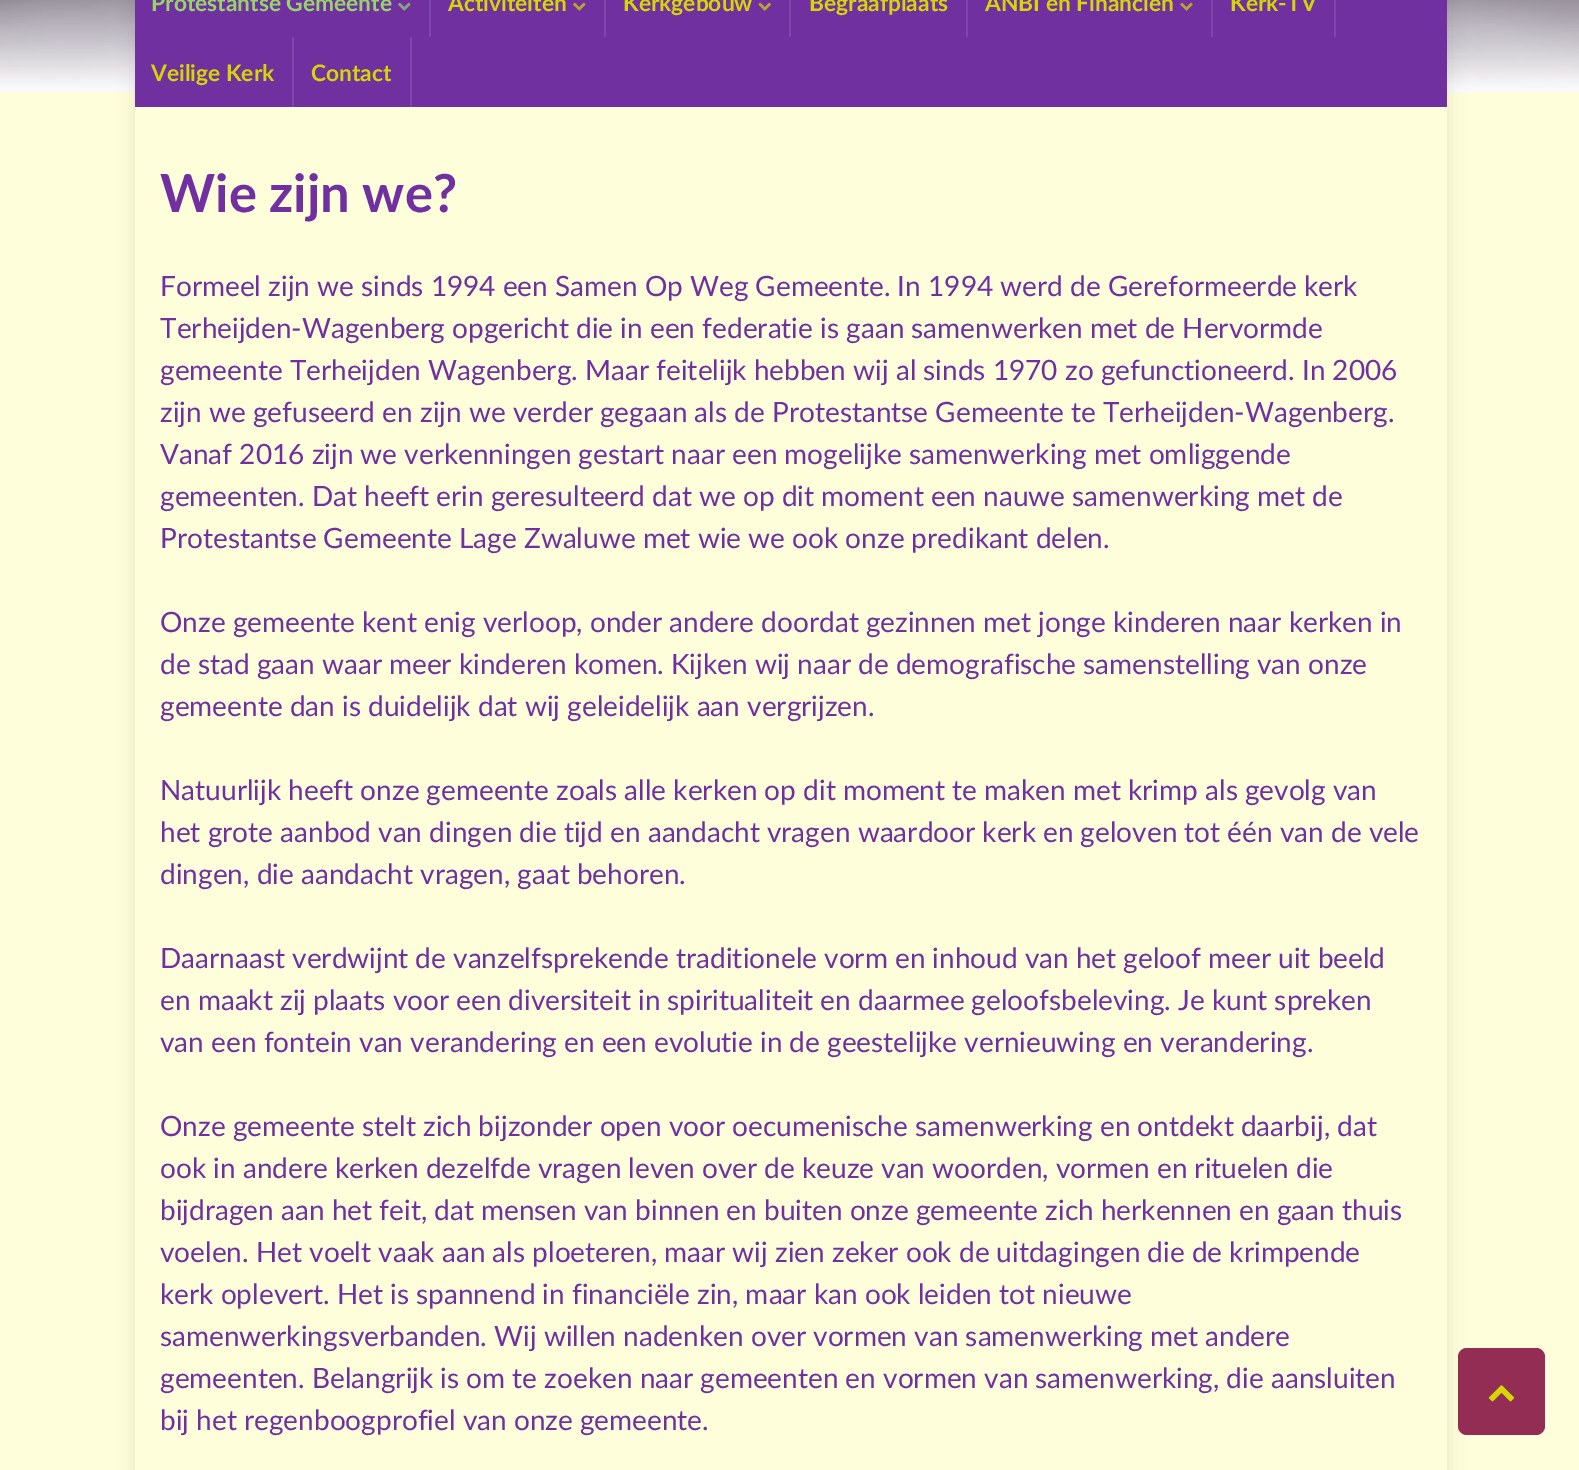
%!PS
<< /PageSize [1579 1470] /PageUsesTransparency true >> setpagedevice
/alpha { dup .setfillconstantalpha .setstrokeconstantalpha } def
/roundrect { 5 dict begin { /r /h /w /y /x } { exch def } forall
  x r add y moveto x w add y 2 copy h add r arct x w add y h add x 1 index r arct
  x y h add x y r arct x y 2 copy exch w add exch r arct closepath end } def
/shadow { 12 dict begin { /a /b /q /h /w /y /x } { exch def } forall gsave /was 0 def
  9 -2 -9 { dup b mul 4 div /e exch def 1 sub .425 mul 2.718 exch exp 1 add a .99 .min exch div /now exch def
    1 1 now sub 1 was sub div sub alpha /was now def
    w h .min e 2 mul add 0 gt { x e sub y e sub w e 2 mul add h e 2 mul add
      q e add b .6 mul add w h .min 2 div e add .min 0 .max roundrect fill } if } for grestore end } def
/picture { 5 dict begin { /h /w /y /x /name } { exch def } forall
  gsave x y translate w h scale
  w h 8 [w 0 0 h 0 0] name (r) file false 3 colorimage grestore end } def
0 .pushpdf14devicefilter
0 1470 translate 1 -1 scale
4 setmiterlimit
0.996 0.996 0.855 setrgbcolor
0 0 1579 1470 rectfill
(img1.rgb) 0 0 1579 93 picture
gsave
newpath 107 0 moveto 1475 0 lineto 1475 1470 lineto 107 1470 lineto closepath 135 -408 moveto 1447 -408 lineto 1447 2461 lineto 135 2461 lineto closepath eoclip newpath
0 setgray
135 -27 1312 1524 0 9 0.1 shadow
grestore
0.439 0.188 0.627 setrgbcolor
135 0 1312 107 rectfill
0.494 0.271 0.667 setrgbcolor
429 0 2 37 rectfill
/Lato-Bold [22.75 0 0 -22.75 0 0] selectfont
0.588 0.839 0.408 setrgbcolor
151 11 moveto (Protestantse Gemeente) show
(img2.rgb) 398 2 13 9 picture
0.494 0.271 0.667 setrgbcolor
604 0 2 37 rectfill
0.835 0.843 0.016 setrgbcolor
448 11 moveto (Activiteiten) show
(img3.rgb) 573 2 13 9 picture
0.494 0.271 0.667 setrgbcolor
789 0 2 37 rectfill
0.835 0.843 0.016 setrgbcolor
623 11 moveto (Kerkgebouw) show
(img4.rgb) 758 2 13 9 picture
0.494 0.271 0.667 setrgbcolor
966 0 2 37 rectfill
0.835 0.843 0.016 setrgbcolor
809 11 moveto (Begraafplaats) show
0.494 0.271 0.667 setrgbcolor
1211 0 2 37 rectfill
0.835 0.843 0.016 setrgbcolor
985 11 moveto (ANBI en Financiën) show
(img5.rgb) 1180 2 13 9 picture
0.494 0.271 0.667 setrgbcolor
1334 0 2 37 rectfill
0.835 0.843 0.016 setrgbcolor
1230 11 moveto (Kerk-TV) show
0.494 0.271 0.667 setrgbcolor
292 37 2 70 rectfill
0.835 0.843 0.016 setrgbcolor
151 81 moveto (Veilige Kerk) show
0.494 0.271 0.667 setrgbcolor
410 37 2 70 rectfill
0.835 0.843 0.016 setrgbcolor
311 81 moveto (Contact) show
/Lato-Bold [52.5 0 0 -52.5 0 0] selectfont
0.439 0.188 0.627 setrgbcolor
160 212 moveto (Wie zijn we?) show
/Lato-Regular [28 0 0 -28 0 0] selectfont
160 296 moveto (Formeel zijn we sinds 1994 een Samen Op Weg Gemeente. In 1994 werd de Gereformeerde kerk) show
160 338 moveto (Terheijden-Wagenberg opgericht die in een federatie is gaan samenwerken met de Hervormde) show
160 380 moveto (gemeente Terheijden Wagenberg. Maar feitelijk hebben wij al sinds 1970 zo gefunctioneerd. In 2006) show
160 422 moveto (zijn we gefuseerd en zijn we verder gegaan als de Protestantse Gemeente te Terheijden-Wagenberg.) show
160 464 moveto (Vanaf 2016 zijn we verkenningen gestart naar een mogelijke samenwerking met omliggende) show
160 506 moveto (gemeenten. Dat heeft erin geresulteerd dat we op dit moment een nauwe samenwerking met de) show
160 548 moveto (Protestantse Gemeente Lage Zwaluwe met wie we ook onze predikant delen.) show
160 632 moveto (Onze gemeente kent enig verloop, onder andere doordat gezinnen met jonge kinderen naar kerken in) show
160 674 moveto (de stad gaan waar meer kinderen komen. Kijken wij naar de demografische samenstelling van onze) show
160 716 moveto (gemeente dan is duidelijk dat wij geleidelijk aan vergrijzen.) show
160 800 moveto (Natuurlijk heeft onze gemeente zoals alle kerken op dit moment te maken met krimp als gevolg van) show
160 842 moveto (het grote aanbod van dingen die tijd en aandacht vragen waardoor kerk en geloven tot één van de vele) show
160 884 moveto (dingen, die aandacht vragen, gaat behoren.) show
160 968 moveto (Daarnaast verdwijnt de vanzelfsprekende traditionele vorm en inhoud van het geloof meer uit beeld) show
160 1010 moveto (en maakt zij plaats voor een diversiteit in spiritualiteit en daarmee geloofsbeleving. Je kunt spreken) show
160 1052 moveto (van een fontein van verandering en een evolutie in de geestelijke vernieuwing en verandering.) show
160 1136 moveto (Onze gemeente stelt zich bijzonder open voor oecumenische samenwerking en ontdekt daarbij, dat) show
160 1178 moveto (ook in andere kerken dezelfde vragen leven over de keuze van woorden, vormen en rituelen die) show
160 1220 moveto (bijdragen aan het feit, dat mensen van binnen en buiten onze gemeente zich herkennen en gaan thuis) show
160 1262 moveto (voelen. Het voelt vaak aan als ploeteren, maar wij zien zeker ook de uitdagingen die de krimpende) show
160 1304 moveto (kerk oplevert. Het is spannend in financiële zin, maar kan ook leiden tot nieuwe) show
160 1346 moveto (samenwerkingsverbanden. Wij willen nadenken over vormen van samenwerking met andere) show
160 1388 moveto (gemeenten. Belangrijk is om te zoeken naar gemeenten en vormen van samenwerking, die aansluiten) show
160 1430 moveto (bij het regenboogprofiel van onze gemeente.) show
1 setgray
1458 1348 87 87 9 2 0.3 shadow
0.576 0.176 0.325 setrgbcolor
1458 1348 87 87 9 roundrect fill
(img6.rgb) 1488 1385 27 17 picture
.poppdf14devicefilter showpage
